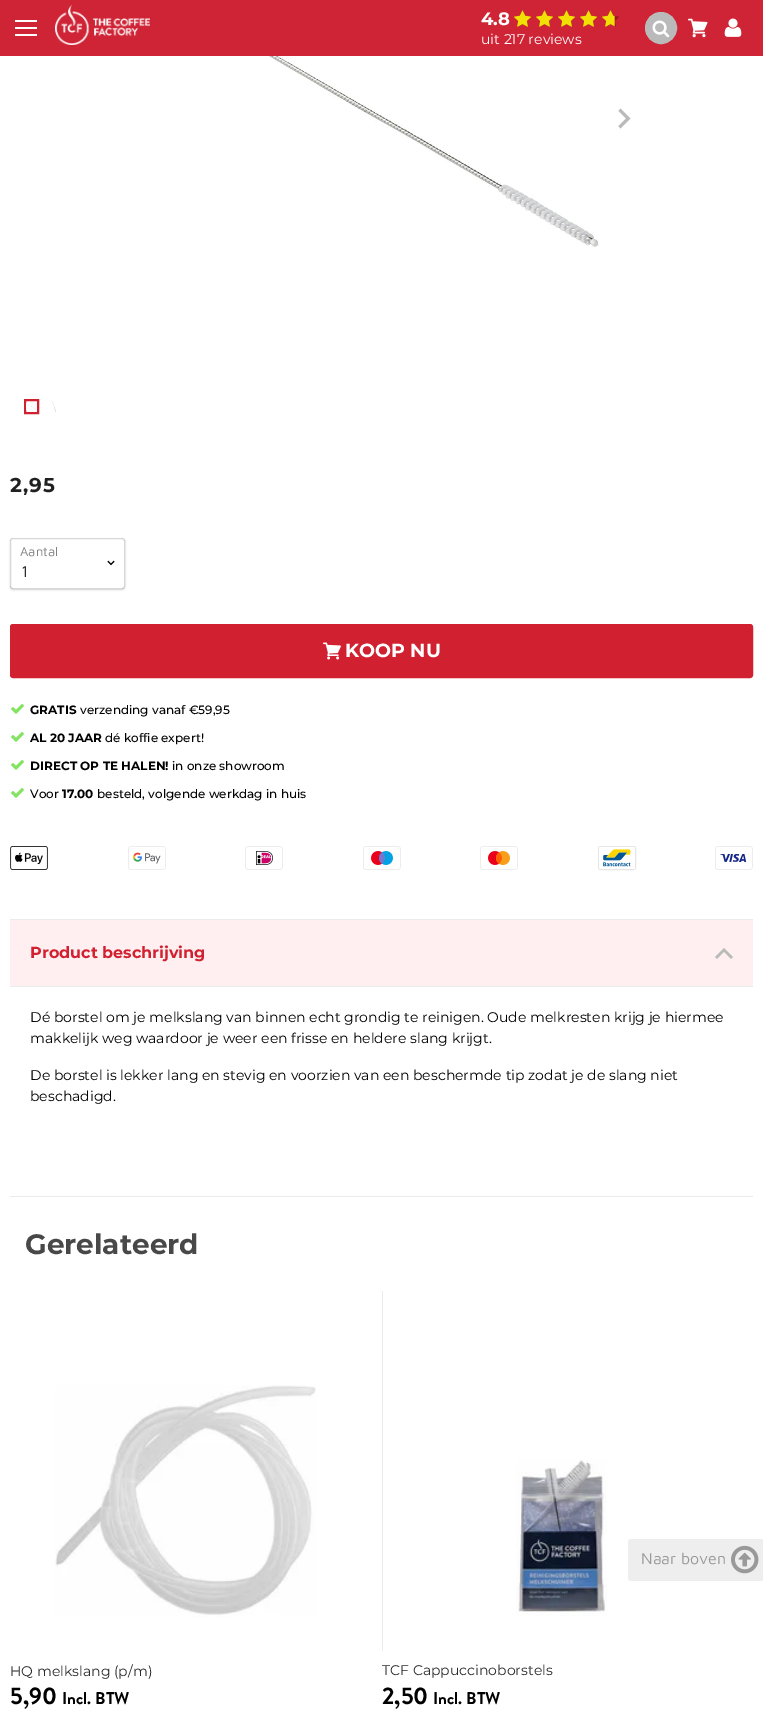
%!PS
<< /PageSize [763 1709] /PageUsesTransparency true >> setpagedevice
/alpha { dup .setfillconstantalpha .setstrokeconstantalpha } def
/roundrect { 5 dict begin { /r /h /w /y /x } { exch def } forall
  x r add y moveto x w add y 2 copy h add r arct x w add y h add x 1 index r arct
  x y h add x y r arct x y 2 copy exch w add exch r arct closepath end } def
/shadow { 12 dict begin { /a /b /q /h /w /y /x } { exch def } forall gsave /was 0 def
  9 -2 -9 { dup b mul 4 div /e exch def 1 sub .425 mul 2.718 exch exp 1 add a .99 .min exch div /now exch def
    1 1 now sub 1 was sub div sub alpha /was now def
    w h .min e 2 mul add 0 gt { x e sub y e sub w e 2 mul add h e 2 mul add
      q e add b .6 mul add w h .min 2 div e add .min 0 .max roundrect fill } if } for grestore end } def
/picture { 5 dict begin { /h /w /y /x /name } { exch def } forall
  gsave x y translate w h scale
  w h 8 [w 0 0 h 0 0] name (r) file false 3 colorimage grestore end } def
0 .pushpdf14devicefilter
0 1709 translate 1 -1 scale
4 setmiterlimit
1 setgray
0 0 763 1709 rectfill
0.812 0.141 0.208 setrgbcolor
0 0 763 56 rectfill
1 setgray
15 20 22 2 rectfill
15 27 22 2 rectfill
15 34 22 2 rectfill
(img1.rgb) 55 5 95 40 picture
/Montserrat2-Bold [18 0 0 -18 0 0] selectfont
481 25 moveto (4.8) show
(img2.rgb) 514 10 105 17 picture
(img3.rgb) 514 10 101 17 picture
/Montserrat-Regular [14 0 0 -14 0 0] selectfont
481 44 moveto (uit 217 reviews) show
0.729 setgray
newpath 661 28 15.5 0 360 arc closepath gsave fill grestore
stroke
(img4.rgb) 652 20 18 18 picture
(img5.rgb) 688 18 20 20 picture
(img6.rgb) 724 18 18 19 picture
(img7.rgb) 132 56 467 191 picture
newpath 618.5 126 moveto 626 118.5 lineto 618.5 111 lineto 620.5 108.5 lineto 630.5 118.5 lineto 620.5 128.5 lineto closepath fill
0.82 0.129 0.192 setrgbcolor
2 setlinewidth
25 400 13 13 rectstroke
(img8.rgb) 26 403 10 7 picture
(img9.rgb) 52 401 5 11 picture
/Montserrat-Bold [20 0 0 -20 0 0] selectfont
0.122 0.125 0.125 setrgbcolor
10 492 moveto 1 0 (2,95) ashow
gsave
newpath 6 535 moveto 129 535 lineto 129 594 lineto 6 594 lineto closepath 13 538 moveto 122 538 lineto 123.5 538 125 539.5 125 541 curveto 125 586 lineto 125 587.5 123.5 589 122 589 curveto 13 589 lineto 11.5 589 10 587.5 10 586 curveto 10 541 lineto 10 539.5 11.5 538 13 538 curveto closepath eoclip newpath
0 setgray
10 539 115 51 3 1 0.15 shadow
grestore
0.3 alpha
0.498 setgray
1 setlinewidth
10.5 538.5 114 50 2.5 roundrect stroke
/MavenPro-Regular [13 0 0 -13 0 0] selectfont
1 alpha
0.502 setgray
20 556 moveto (Aantal) show
(img10.rgb) 107 560 8 6 picture
/MavenPro-Regular [16 0 0 -16 0 0] selectfont
0.169 setgray
21 577 moveto (1) show
0.82 0.129 0.192 setrgbcolor
10.5 624.5 742 53 2.5 roundrect gsave fill grestore
stroke
(img11.rgb) 323 642 18 18 picture
/Montserrat-Bold [19 0 0 -19 0 0] selectfont
1 setgray
345 657 moveto (KOOP NU) show
(img12.rgb) 11 704 13 10 picture
/Montserrat-Bold [12 0 0 -12 0 0] selectfont
0 setgray
30 714 moveto (GRATIS) show
/Montserrat-Medium [12 0 0 -12 0 0] selectfont
80 714 moveto (verzending vanaf €59,95) show
(img12.rgb) 11 732 13 10 picture
/Montserrat-Bold [12 0 0 -12 0 0] selectfont
30 742 moveto (AL 20 JAAR) show
/Montserrat-Medium [12 0 0 -12 0 0] selectfont
105 742 moveto (dé koffie expert!) show
(img12.rgb) 11 760 13 10 picture
/Montserrat-Bold [12 0 0 -12 0 0] selectfont
30 770 moveto (DIRECT OP TE HALEN!) show
/Montserrat-Medium [12 0 0 -12 0 0] selectfont
172 770 moveto (in onze showroom) show
(img12.rgb) 11 788 13 10 picture
30 798 moveto (Voor) show
/Montserrat-Bold [12 0 0 -12 0 0] selectfont
62 798 moveto (17.00) show
/Montserrat-Medium [12 0 0 -12 0 0] selectfont
97 798 moveto (besteld, volgende werkdag in huis) show
(img13.rgb) 10 846 38 24 picture
(img14.rgb) 128 846 38 24 picture
(img15.rgb) 245 846 38 24 picture
(img16.rgb) 363 846 38 24 picture
(img17.rgb) 480 846 38 24 picture
0.902 setgray
598.5 846.5 37 23 1.5 roundrect stroke
1 setgray
599 847 36 22 rectfill
(img18.rgb) 603 849 28 18 picture
(img19.rgb) 715 846 38 24 picture
0.922 setgray
10 919 743 1 rectfill
10 1196 743 1 rectfill
1 0.937 0.941 setrgbcolor
10 920 743 66 rectfill
0.922 setgray
10 986 743 1 rectfill
/Montserrat2-Bold [16 0 0 -16 0 0] selectfont
0.82 0.129 0.192 setrgbcolor
30 958 moveto (Product beschrijving) show
0.729 setgray
newpath 724 948 moveto 733 957 lineto 731 959 lineto 724 951.5 lineto 717 959 lineto 715 957 lineto closepath fill
/Montserrat-Regular [14 0 0 -14 0 0] selectfont
0 setgray
30 1022 moveto (Dé borstel om je melkslang van binnen echt grondig te reinigen. Oude melkresten krijg je hiermee) show
30 1043 moveto (makkelijk weg waardoor je weer een frisse en heldere slang krijgt.) show
30 1080 moveto (De borstel is lekker lang en stevig en voorzien van een beschermde tip zodat je de slang niet) show
30 1101 moveto (beschadigd.) show
/Montserrat-Bold [28 0 0 -28 0 0] selectfont
0.282 setgray
25 1254 moveto (Gerelateerd) show
(img20.rgb) 55 1385 261 232 picture
/Montserrat-Regular [14 0 0 -14 0 0] selectfont
0.169 setgray
10 1676 moveto (HQ melkslang \(p/m\)) show
/BrandonGrotesque-Bold [24 0 0 -24 0 0] selectfont
0 setgray
10 1704 moveto (5,90) show
/BrandonGrotesque-Bold [17 0 0 -17 0 0] selectfont
62 1704 moveto (Incl. BTW) show
0.922 setgray
382 1291 1 360 rectfill
(img21.rgb) 516 1460 91 156 picture
/Montserrat-Regular [14 0 0 -14 0 0] selectfont
0.169 setgray
382 1675 moveto (TCF Cappuccinoborstels) show
/BrandonGrotesque-Bold [24 0 0 -24 0 0] selectfont
0 setgray
382 1704 moveto (2,50) show
/BrandonGrotesque-Bold [17 0 0 -17 0 0] selectfont
433 1704 moveto (Incl. BTW) show
0.933 setgray
newpath 631 1539 moveto 763 1539 lineto 763 1581 lineto 631 1581 lineto 629.5 1581 628 1579.5 628 1578 curveto 628 1542 lineto 628 1540.5 629.5 1539 631 1539 curveto closepath fill
/MavenPro-Regular [16 0 0 -16 0 0] selectfont
0.6 setgray
641 1564 moveto (Naar boven) show
(img22.rgb) 731 1545 28 29 picture
.poppdf14devicefilter showpage
